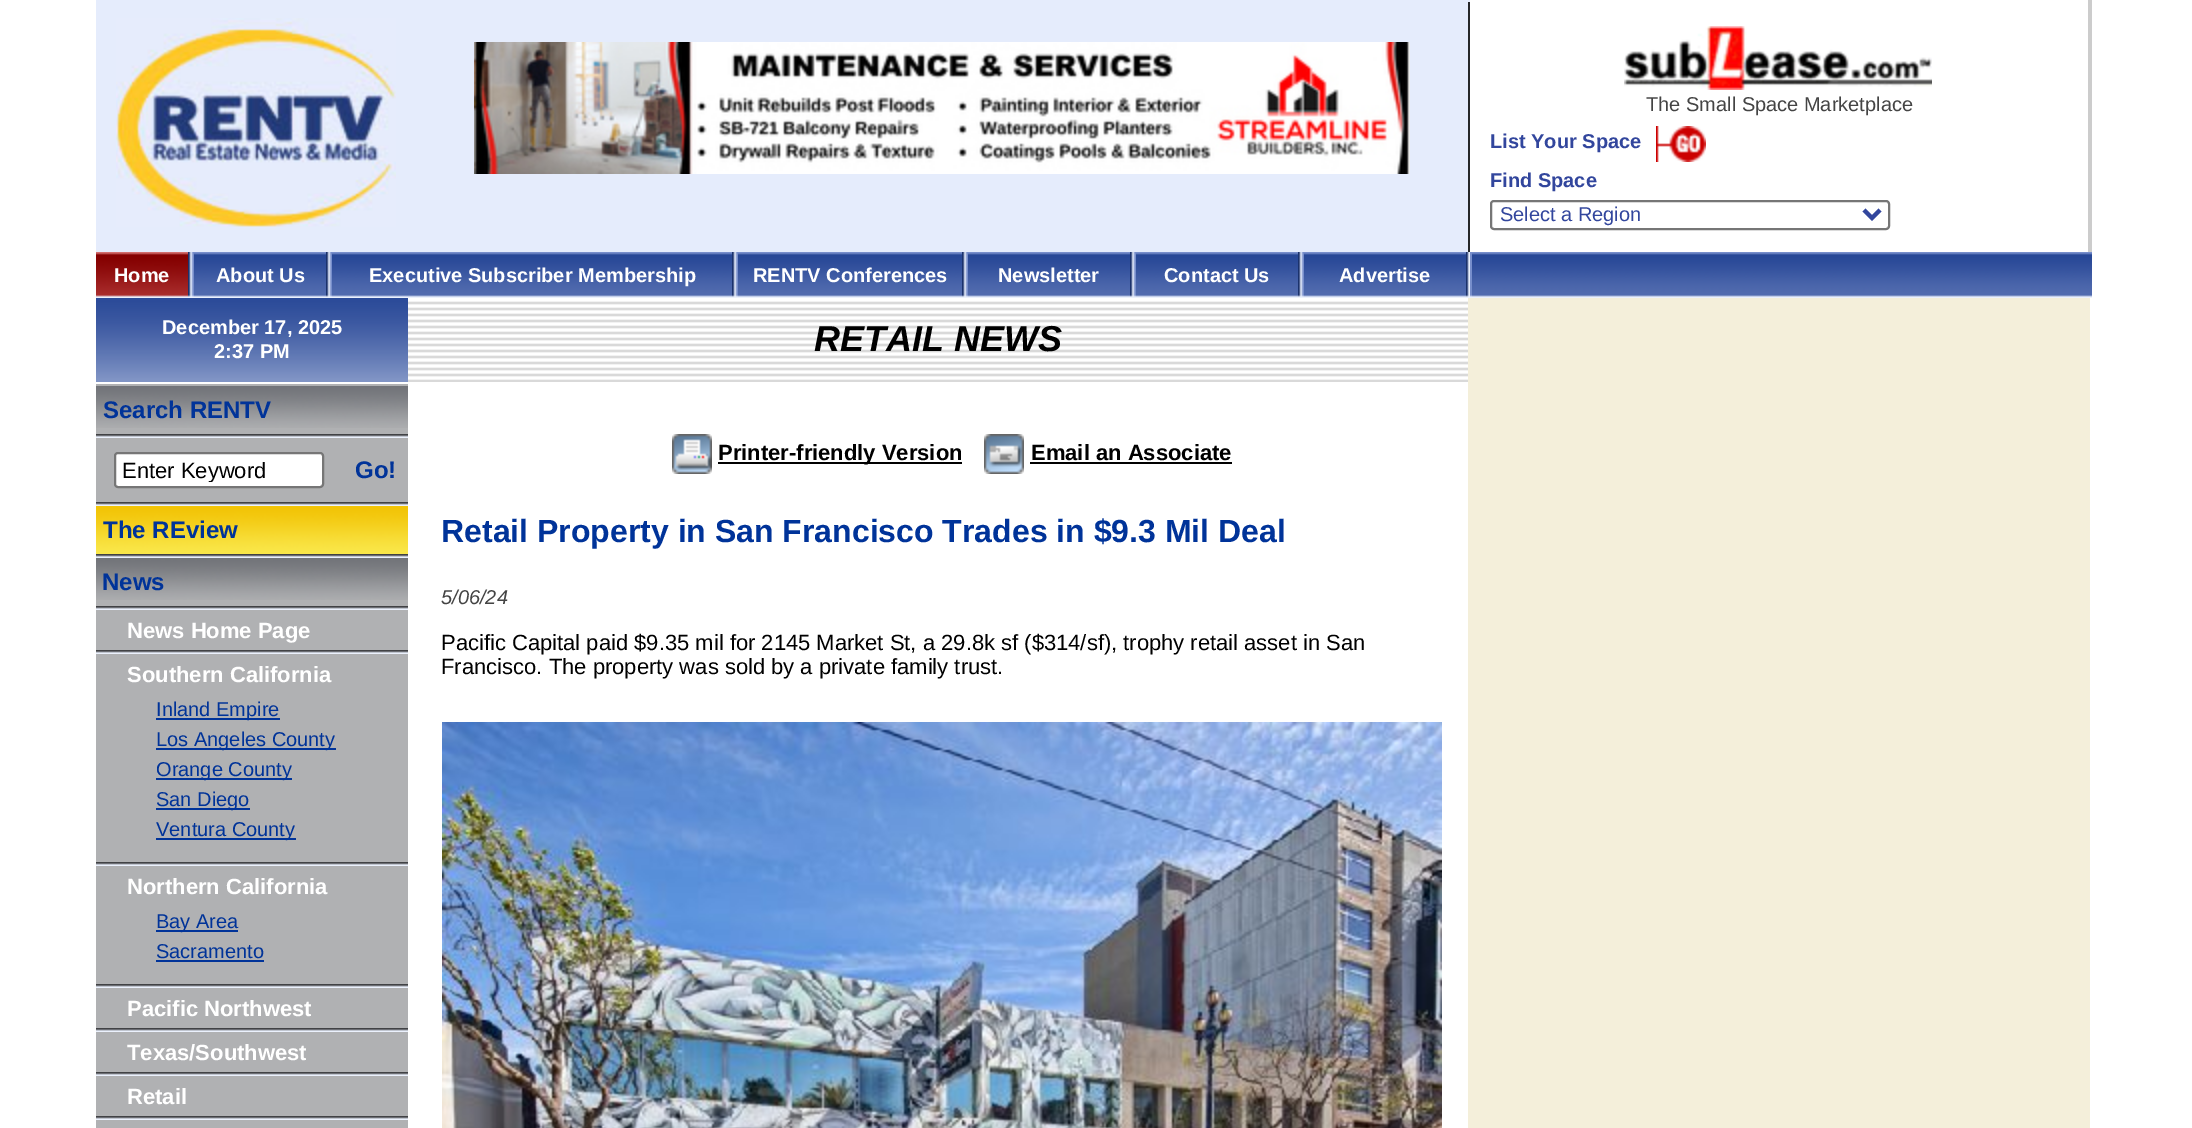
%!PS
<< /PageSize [2192 1128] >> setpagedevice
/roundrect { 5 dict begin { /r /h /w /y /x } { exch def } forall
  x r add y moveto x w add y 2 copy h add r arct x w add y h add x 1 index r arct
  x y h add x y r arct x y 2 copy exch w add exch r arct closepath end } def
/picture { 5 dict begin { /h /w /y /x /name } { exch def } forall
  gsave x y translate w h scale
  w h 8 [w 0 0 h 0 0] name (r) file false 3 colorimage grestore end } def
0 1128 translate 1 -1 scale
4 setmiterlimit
1 setgray
0 0 2192 1128 rectfill
0.898 0.925 0.988 setrgbcolor
96 0 1374 252 rectfill
(img1.rgb) 116 18 280 209 picture
(img2.rgb) 474 42 936 132 picture
0.149 0.153 0.161 setrgbcolor
1468 2 2 250 rectfill
(img3.rgb) 1624 26 308 64 picture
/LiberationSans-Regular [20 0 0 -20 0 0] selectfont
0.267 setgray
1646 111 moveto (The Small Space Marketplace) show
/LiberationSans-Bold [20 0 0 -20 0 0] selectfont
0.196 0.275 0.616 setrgbcolor
1490 148 moveto (List Your Space) show
(img4.rgb) 1656 126 50 36 picture
1490 187 moveto (Find Space) show
0.463 setgray
2 setlinewidth
1491 201 398 28 3 roundrect stroke
0.196 0.275 0.616 setrgbcolor
4 setlinewidth
newpath 1864 210 moveto 1872 218 lineto 1880 210 lineto stroke
/LiberationSans-Regular [20 0 0 -20 0 0] selectfont
1500 221 moveto (Select a Region) show
0.8 setgray
2088 0 4 252 rectfill
(img5.rgb) 96 252 1374 46 picture
(img6.rgb) 96 252 92 45 picture
/LiberationSans-Bold [20 0 0 -20 0 0] selectfont
1 setgray
114 282 moveto (Home) show
(img7.rgb) 188 252 6 45 picture
216 282 moveto (About Us) show
(img7.rgb) 326 252 6 45 picture
369 282 moveto (Executive Subscriber Membership) show
(img7.rgb) 732 252 6 45 picture
753 282 moveto (RENTV Conferences) show
(img7.rgb) 962 252 6 45 picture
998 282 moveto (Newsletter) show
(img7.rgb) 1130 252 6 45 picture
1164 282 moveto (Contact Us) show
(img7.rgb) 1298 252 6 45 picture
1339 282 moveto (Advertise) show
(img8.rgb) 1466 252 4 45 picture
(img9.rgb) 1470 252 622 46 picture
(img10.rgb) 1470 253 2 44 picture
0.69 0.694 0.702 setrgbcolor
96 384 312 744 rectfill
(img11.rgb) 96 298 312 84 picture
1 setgray
162 334 moveto (December 17, 2025) show
214 358 moveto (2:37 PM) show
(img12.rgb) 96 386 312 42 picture
/LiberationSans-Bold [24 0 0 -24 0 0] selectfont
0 0.2 0.6 setrgbcolor
103 418 moveto (Search RENTV) show
(img13.rgb) 96 434 312 4 picture
1 setgray
115 453 208 34 3 roundrect gsave fill grestore
0.463 setgray
2 setlinewidth
stroke
gsave
122 458 194 24 rectclip
/LiberationSans-Regular [22 0 0 -22 0 0] selectfont
0 setgray
122 478 moveto (Enter Keyword) show
grestore
0 0.2 0.6 setrgbcolor
355 478 moveto (Go!) show
(img13.rgb) 96 502 312 4 picture
(img14.rgb) 96 506 312 48 picture
103 538 moveto (The REview) show
(img13.rgb) 96 554 312 4 picture
(img12.rgb) 96 558 312 42 picture
102 590 moveto (News) show
(img13.rgb) 96 606 312 4 picture
/LiberationSans-Bold [22 0 0 -22 0 0] selectfont
1 setgray
127 638 moveto (News Home Page) show
(img13.rgb) 96 650 312 4 picture
127 682 moveto (Southern California) show
0 0.2 0.6 setrgbcolor
156 718 124 2 rectfill
/LiberationSans-Regular [20 0 0 -20 0 0] selectfont
156 716 moveto (Inland Empire) show
156 748 180 2 rectfill
156 746 moveto (Los Angeles County) show
156 778 136 2 rectfill
156 776 moveto (Orange County) show
156 808 94 2 rectfill
156 806 moveto (San Diego) show
156 838 140 2 rectfill
156 836 moveto (Ventura County) show
(img13.rgb) 96 862 312 4 picture
/LiberationSans-Bold [22 0 0 -22 0 0] selectfont
1 setgray
127 894 moveto (Northern California) show
0 0.2 0.6 setrgbcolor
156 930 82 2 rectfill
/LiberationSans-Regular [20 0 0 -20 0 0] selectfont
156 928 moveto (Bay Area) show
156 958 moveto (Sacramento) show
156 960 108 2 rectfill
(img13.rgb) 96 984 312 4 picture
/LiberationSans-Bold [22 0 0 -22 0 0] selectfont
1 setgray
127 1016 moveto (Pacific Northwest) show
(img13.rgb) 96 1028 312 4 picture
127 1060 moveto (Texas/Southwest) show
(img13.rgb) 96 1072 312 4 picture
127 1104 moveto (Retail) show
(img13.rgb) 96 1116 312 4 picture
(img15.rgb) 408 301 1060 81 picture
/LiberationSans-BoldItalic [36 0 0 -36 0 0] selectfont
0 setgray
814 351 moveto (RETAIL NEWS) show
(img16.rgb) 672 434 40 40 picture
718 462 244 2 rectfill
/LiberationSans-Bold [22 0 0 -22 0 0] selectfont
718 460 moveto (Printer-friendly Version) show
(img17.rgb) 984 434 40 40 picture
1031 460 moveto (Email an Associate) show
1030 462 202 2 rectfill
/LiberationSans-Bold [32 0 0 -32 0 0] selectfont
0 0.2 0.6 setrgbcolor
441 542 moveto (Retail Property in San Francisco Trades in $9.3 Mil Deal) show
/LiberationSans-Italic [20 0 0 -20 0 0] selectfont
0.267 setgray
441 604 moveto (5/06/24) show
/LiberationSans-Regular [22 0 0 -22 0 0] selectfont
0 setgray
441 650 moveto (Pacific Capital paid $9.35 mil for 2145 Market St, a 29.8k sf \($314/sf\), trophy retail asset in San) show
441 674 moveto (Francisco. The property was sold by a private family trust.) show
(img18.rgb) 442 722 1000 406 picture
0.957 0.937 0.855 setrgbcolor
1468 298 622 830 rectfill
showpage
